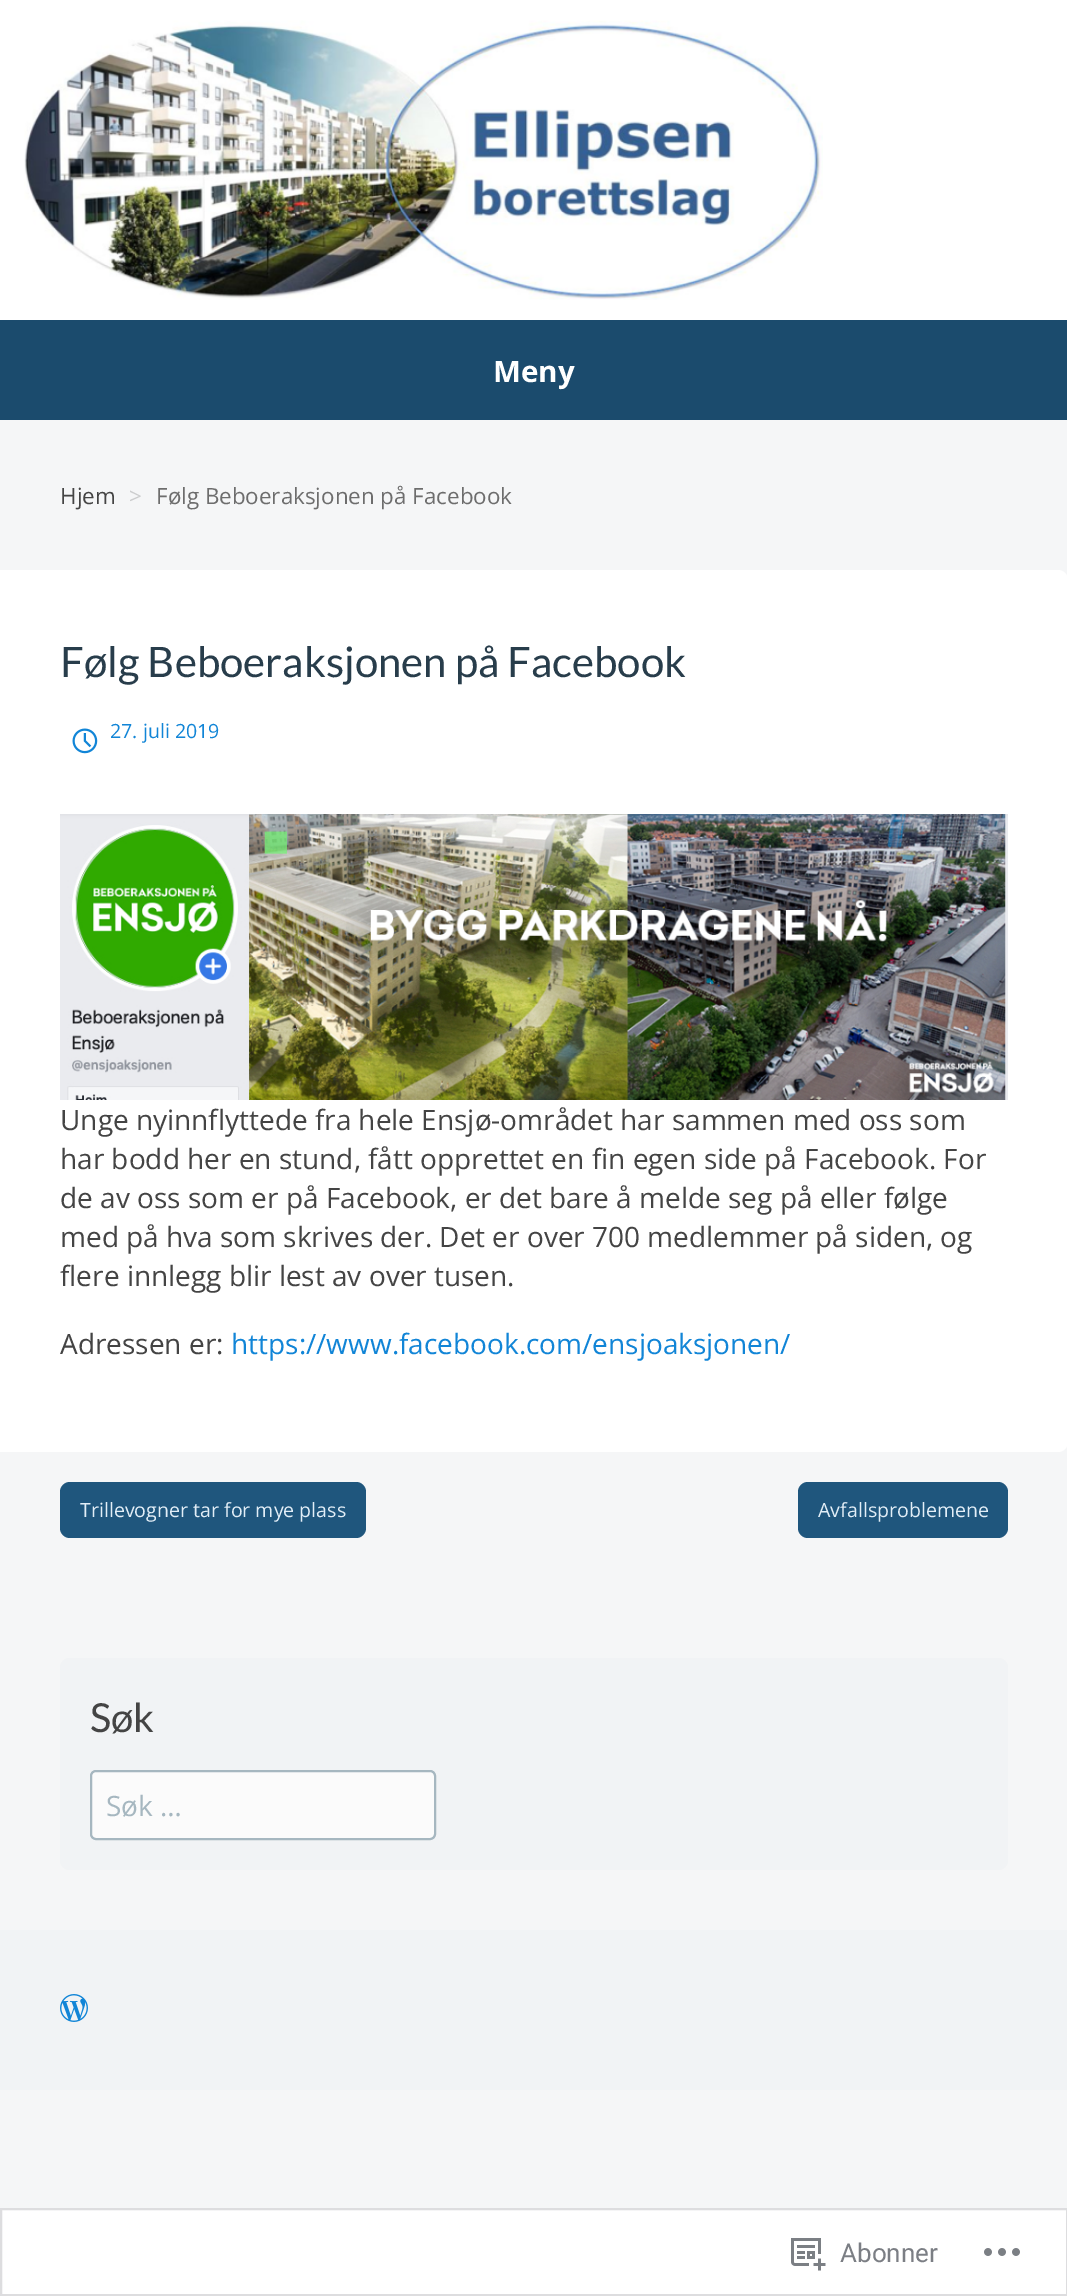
%!PS
<< /PageSize [1067 2296] >> setpagedevice
/roundrect { 5 dict begin { /r /h /w /y /x } { exch def } forall
  x r add y moveto x w add y 2 copy h add r arct x w add y h add x 1 index r arct
  x y h add x y r arct x y 2 copy exch w add exch r arct closepath end } def
/picture { 5 dict begin { /h /w /y /x /name } { exch def } forall
  gsave x y translate w h scale
  w h 8 [w 0 0 h 0 0] name (r) file false 3 colorimage grestore end } def
0 2296 translate 1 -1 scale
4 setmiterlimit
0.961 0.965 0.969 setrgbcolor
0 0 1067 2296 rectfill
1 setgray
0 0 1067 320 rectfill
(img1.rgb) 24 20 799 280 picture
0.106 0.294 0.427 setrgbcolor
0 320 1067 100 rectfill
/OpenSans-Bold [29.5 0 0 -29.5 0 0] selectfont
1 setgray
493 382 moveto (Meny) show
/OpenSans-Regular [22.4 0 0 -22.4 0 0] selectfont
0.267 setgray
60 504 moveto (Hjem) show
0.8 0.804 0.808 setrgbcolor
129 504 moveto (>) show
0.427 setgray
156 504 moveto (Følg Beboeraksjonen på Facebook) show
1 setgray
newpath 0 570 moveto 1058 570 lineto 1063.5 570 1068 574.5 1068 580 curveto 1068 1442 lineto 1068 1447.5 1063.5 1452 1058 1452 curveto 0 1452 lineto closepath fill
/Lato-Regular [42 0 0 -42 0 0] selectfont
0.157 0.239 0.294 setrgbcolor
60 677 moveto (Følg Beboeraksjonen på Facebook) show
(img2.rgb) 72 728 26 26 picture
/OpenSans-Regular [19.6 0 0 -19.6 0 0] selectfont
0.067 0.522 0.843 setrgbcolor
110 738 moveto (27. juli 2019) show
(img3.rgb) 60 814 948 286 picture
/OpenSans-Regular [28 0 0 -28 0 0] selectfont
0.267 setgray
60 1130 moveto (Unge nyinnflyttede fra hele Ensjø-området har sammen med oss som) show
60 1169 moveto (har bodd her en stund, fått opprettet en fin egen side på Facebook. For) show
60 1208 moveto (de av oss som er på Facebook, er det bare å melde seg på eller følge) show
60 1247 moveto (med på hva som skrives der. Det er over 700 medlemmer på siden, og) show
60 1286 moveto (flere innlegg blir lest av over tusen.) show
60 1354 moveto (Adressen er:) show
0.067 0.522 0.843 setrgbcolor
231 1354 moveto (https://www.facebook.com/ensjoaksjonen/) show
0.122 0.337 0.49 setrgbcolor
60 1482 306 56 10 roundrect fill
/OpenSans-Regular [19.6 0 0 -19.6 0 0] selectfont
0.886 0.933 0.969 setrgbcolor
80 1517 moveto (Trillevogner tar for mye plass) show
0.122 0.337 0.49 setrgbcolor
798 1482 210 56 10 roundrect fill
0.886 0.933 0.969 setrgbcolor
818 1517 moveto (Avfallsproblemene) show
0.945 0.953 0.961 setrgbcolor
60 1658 948 212 10 roundrect fill
/Lato-Regular [40 0 0 -40 0 0] selectfont
0.267 setgray
90 1732 moveto (Søk) show
0.984 setgray
91 1771 344 68 5 roundrect gsave fill grestore
0.651 0.718 0.753 setrgbcolor
2 setlinewidth
stroke
/OpenSans-Regular [28 0 0 -28 0 0] selectfont
106 1816 moveto (Søk …) show
0.945 0.953 0.961 setrgbcolor
0 1930 1067 160 rectfill
(img4.rgb) 60 1994 28 28 picture
1 setgray
newpath 1 2209 moveto 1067 2209 lineto 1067 2295 lineto 1 2295 lineto closepath gsave fill grestore
0.867 0.867 0.875 setrgbcolor
stroke
(img5.rgb) 791 2238 35 33 picture
/Roboto-Regular [26 0 0 -26 0 0] selectfont
0.482 0.494 0.518 setrgbcolor
840 2262 moveto (Abonner) show
(img6.rgb) 984 2248 36 8 picture
showpage
